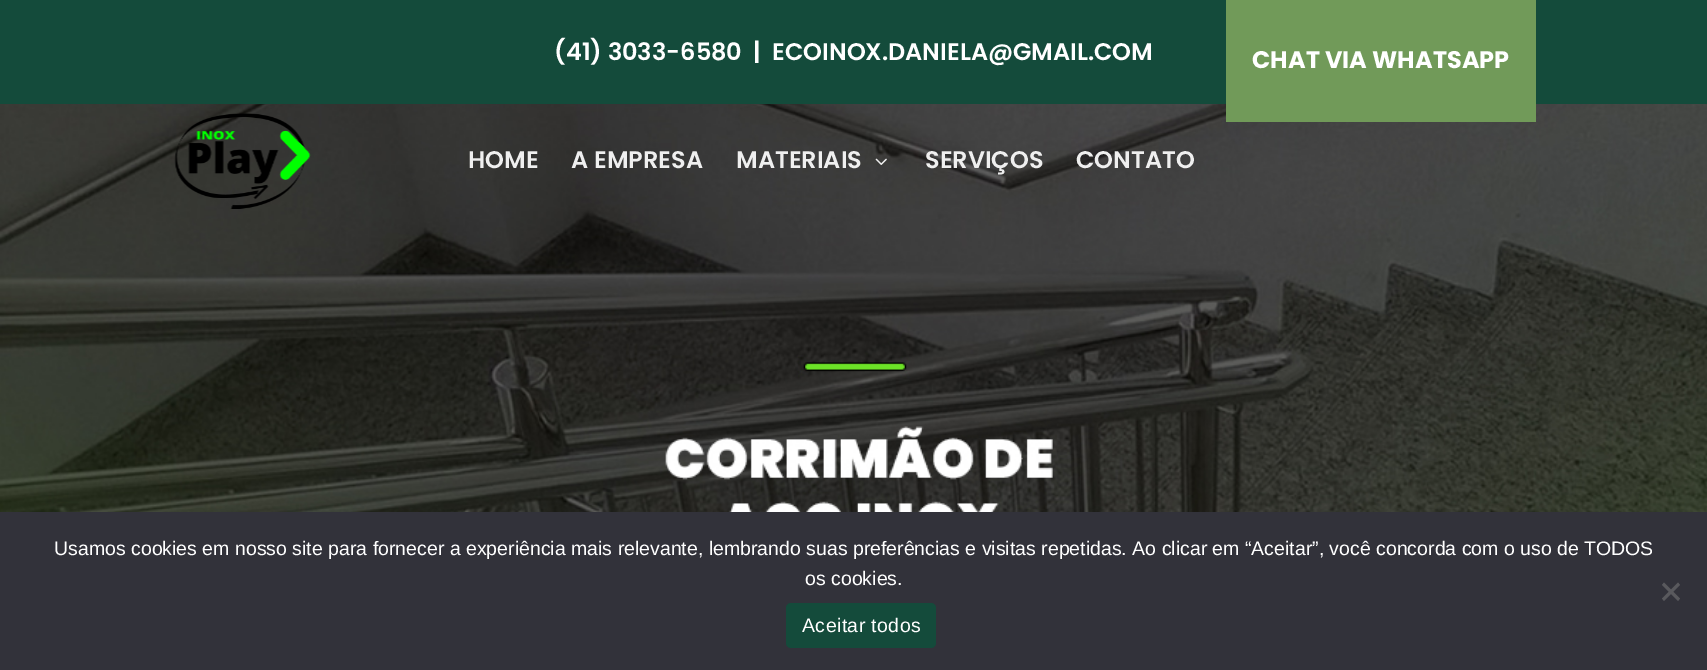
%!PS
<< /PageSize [1707 670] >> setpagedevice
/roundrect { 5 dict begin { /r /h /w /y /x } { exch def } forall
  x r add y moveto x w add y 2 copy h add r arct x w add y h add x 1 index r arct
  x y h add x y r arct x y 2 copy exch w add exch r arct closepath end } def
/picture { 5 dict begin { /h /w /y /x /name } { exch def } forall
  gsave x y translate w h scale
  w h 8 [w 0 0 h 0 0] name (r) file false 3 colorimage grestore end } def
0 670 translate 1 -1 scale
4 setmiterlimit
1 setgray
0 0 1707 670 rectfill
0.078 0.294 0.231 setrgbcolor
0 0 1707 104 rectfill
/Poppins-SemiBold [24 0 0 -24 0 0] selectfont
1 setgray
554 60 moveto (\(41\) 3033-6580  |  ECOINOX.DANIELA@GMAIL.COM) show
(img3.rgb) 0 104 1707 408 picture
0.443 0.604 0.349 setrgbcolor
1226 0 310 122 rectfill
/Poppins-Bold [24 0 0 -24 0 0] selectfont
1 setgray
1252 68 moveto (CHAT VIA WHATSAPP) show
(img1.rgb) 174 113 137 96 picture
/Poppins-SemiBold [24 0 0 -24 0 0] selectfont
0.937 setgray
468 168 moveto (HOME) show
571 168 moveto (A EMPRESA) show
736 168 moveto (MATERIAIS) show
(img2.rgb) 875 158 12 7 picture
925 168 moveto (SERVIÇOS) show
1076 168 moveto (CONTATO) show
0.196 0.196 0.227 setrgbcolor
0 512 1707 158 rectfill
/LiberationSans-Regular [19.5 0 0 -19.5 0 0] selectfont
1 setgray
54 555 moveto (Usamos cookies em nosso site para fornecer a experiência mais relevante, lembrando suas preferências e visitas repetidas. Ao clicar em “Aceitar”, você concorda com o uso de TODOS) show
805 585 moveto (os cookies.) show
0.349 0.349 0.365 setrgbcolor
newpath 1678 582.5 moveto 1680 585 lineto 1664 601 lineto 1662 598.5 lineto closepath fill
newpath 1662 585 moveto 1664 582.5 lineto 1680 598.5 lineto 1678 601 lineto closepath fill
0.078 0.294 0.231 setrgbcolor
786 603 150 45 5 roundrect fill
1 setgray
802 632 moveto 0.4 0 (Aceitar todos) ashow
showpage
